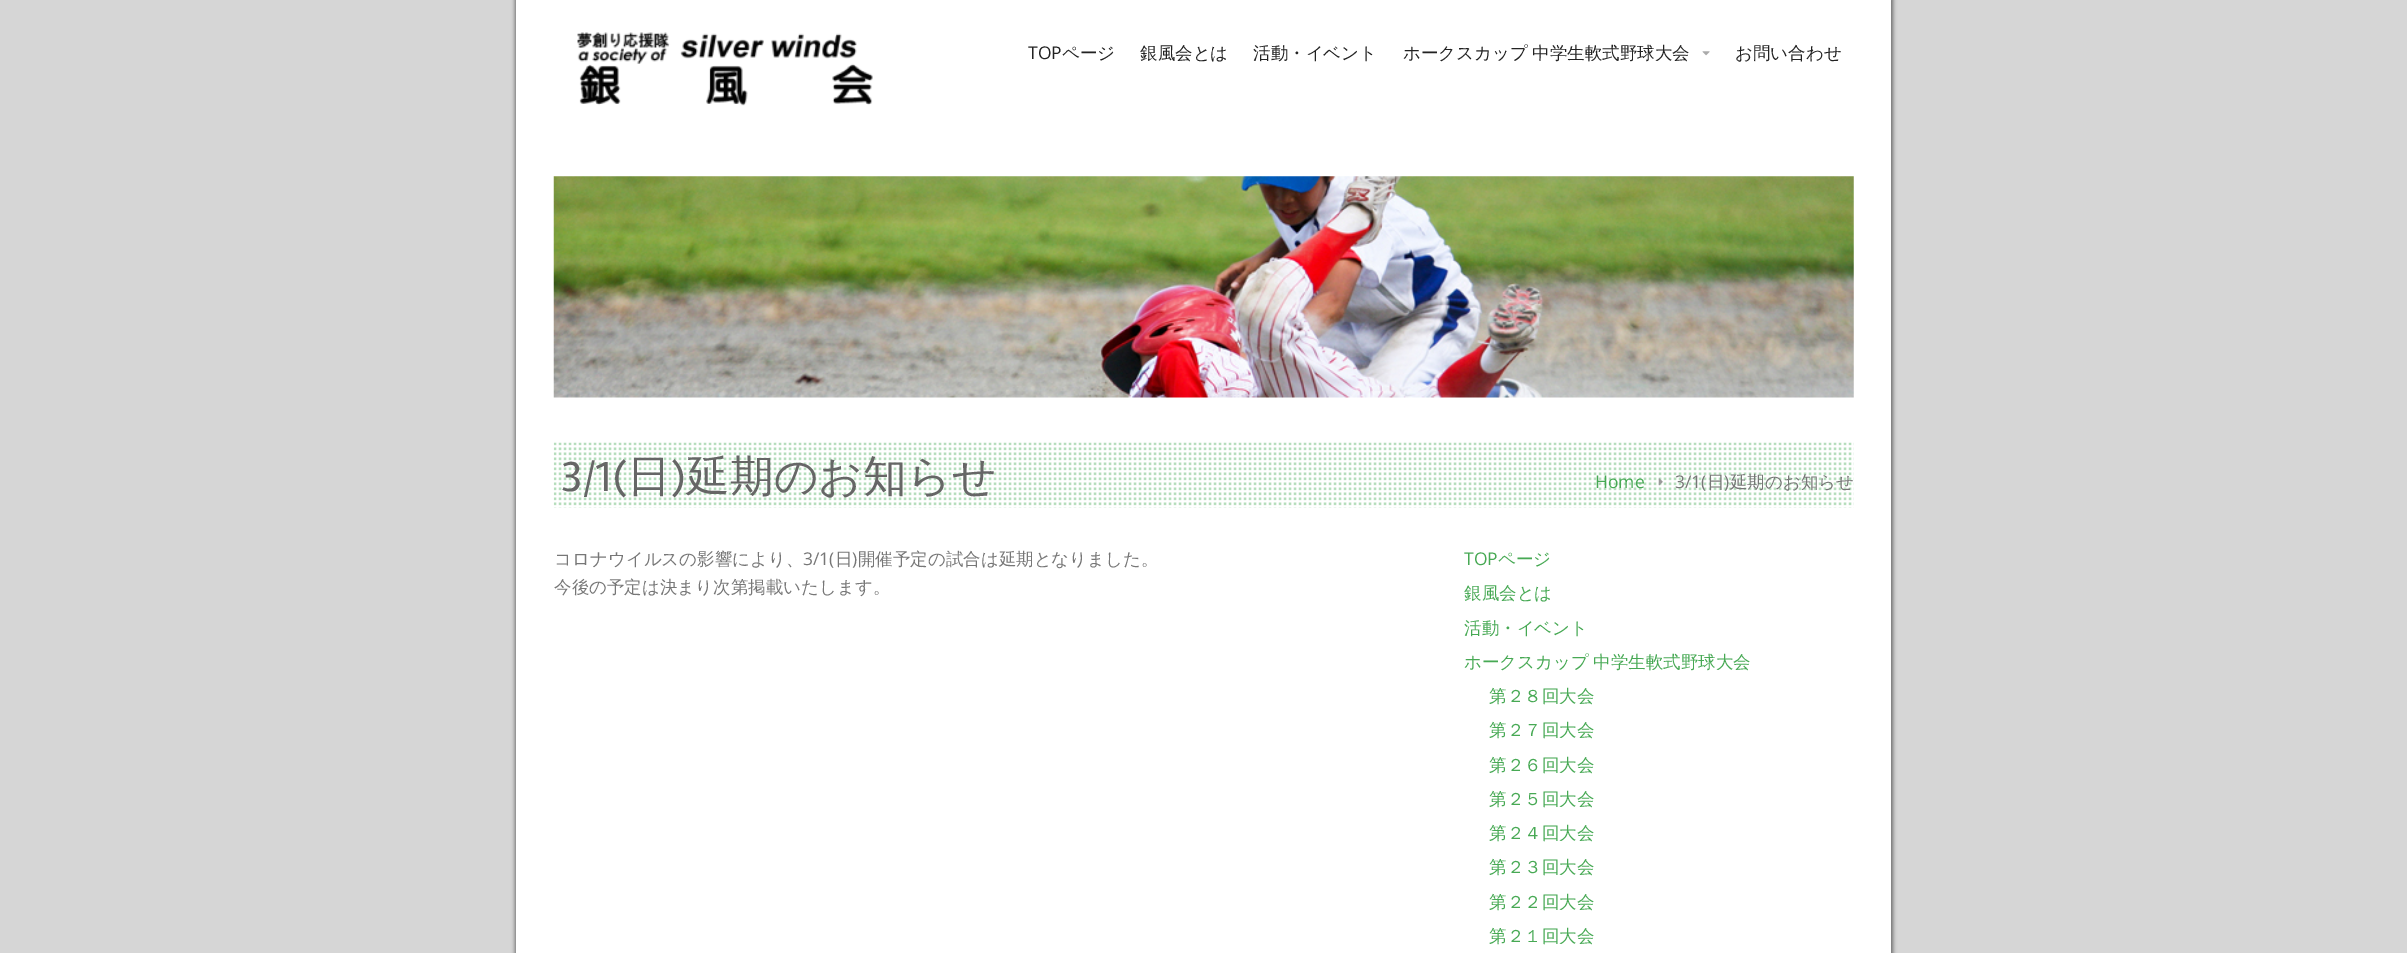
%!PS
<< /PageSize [2407 953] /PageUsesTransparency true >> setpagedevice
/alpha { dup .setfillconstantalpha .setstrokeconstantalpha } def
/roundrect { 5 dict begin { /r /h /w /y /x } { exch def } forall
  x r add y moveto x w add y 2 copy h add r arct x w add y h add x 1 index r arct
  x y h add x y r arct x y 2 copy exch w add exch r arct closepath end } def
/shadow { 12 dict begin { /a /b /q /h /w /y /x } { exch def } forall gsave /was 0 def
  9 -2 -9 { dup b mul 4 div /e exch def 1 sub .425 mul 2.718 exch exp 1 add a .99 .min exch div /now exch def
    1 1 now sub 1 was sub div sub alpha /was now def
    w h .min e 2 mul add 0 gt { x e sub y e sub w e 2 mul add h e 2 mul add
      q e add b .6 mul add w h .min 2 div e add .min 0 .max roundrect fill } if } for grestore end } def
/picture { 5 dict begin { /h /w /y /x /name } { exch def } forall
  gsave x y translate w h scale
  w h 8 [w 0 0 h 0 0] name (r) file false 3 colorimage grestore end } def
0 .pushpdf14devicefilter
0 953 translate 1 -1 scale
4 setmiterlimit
0.839 setgray
0 0 2407 953 rectfill
0 setgray
515 -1 1378 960 0 2 0.5 shadow
1 setgray
516 0 1375 953 rectfill
(img1.rgb) 577 32 296 74 picture
/OpenSans-Regular [17.5 0 0 -17.5 0 0] selectfont
0.133 setgray
1028 59 moveto (TOP) show
/WenQuanYiZenHei-Medium [17.5 0 0 -17.5 0 0] selectfont
1062 59 moveto (ページ) show
1140 59 moveto (銀風会とは) show
1253 59 moveto (活動・イベント) show
1403 59 moveto -1 0 32 (ホークスカップ 中学生軟式野球大会) widthshow
(img2.rgb) 1702 51 8 5 picture
1735 59 moveto (お問い合わせ) show
(img3.rgb) 553 176 1301 222 picture
(img4.rgb) 553 442 1301 66 picture
/AverageSans-Regular [43.75 0 0 -43.75 0 0] selectfont
0.4 setgray
560 491 moveto (3/1\() show
/WenQuanYiZenHei-Medium [43.75 0 0 -43.75 0 0] selectfont
627 491 moveto (日) show
/AverageSans-Regular [43.75 0 0 -43.75 0 0] selectfont
671 491 moveto (\)) show
/WenQuanYiZenHei-Medium [43.75 0 0 -43.75 0 0] selectfont
686 491 moveto (延期のお知らせ) show
/OpenSans-Regular [17.5 0 0 -17.5 0 0] selectfont
0.278 0.663 0.329 setrgbcolor
1595 488 moveto (Home) show
(img5.rgb) 1658 478 5 8 picture
0.467 setgray
1675 488 moveto (3/1\() show
/WenQuanYiZenHei-Medium [17.5 0 0 -17.5 0 0] selectfont
1707 488 moveto (日 延期のお知らせ) show
/OpenSans-Regular [17.5 0 0 -17.5 0 0] selectfont
1724 488 moveto (\)) show
/WenQuanYiZenHei-Medium [17.5 0 0 -17.5 0 0] selectfont
554 565 moveto (コロナウイルスの影響により、) show
/OpenSans-Regular [17.5 0 0 -17.5 0 0] selectfont
803 565 moveto (3/1\() show
/WenQuanYiZenHei-Medium [17.5 0 0 -17.5 0 0] selectfont
835 565 moveto (日 開催予定の試合は延期となりました。) show
/OpenSans-Regular [17.5 0 0 -17.5 0 0] selectfont
852 565 moveto (\)) show
/WenQuanYiZenHei-Medium [17.5 0 0 -17.5 0 0] selectfont
554 593 moveto (今後の予定は決まり次第掲載いたします。) show
/OpenSans-Regular [17.5 0 0 -17.5 0 0] selectfont
0.278 0.663 0.329 setrgbcolor
1464 565 moveto (TOP) show
/WenQuanYiZenHei-Medium [17.5 0 0 -17.5 0 0] selectfont
1498 565 moveto (ページ) show
1464 599 moveto (銀風会とは) show
1464 634 moveto (活動・イベント) show
1464 668 moveto -1 0 32 (ホークスカップ 中学生軟式野球大会) widthshow
1489 702 moveto (第２８回大会) show
1489 736 moveto (第２７回大会) show
1489 771 moveto (第２６回大会) show
1489 805 moveto (第２５回大会) show
1489 839 moveto (第２４回大会) show
1489 873 moveto (第２３回大会) show
1489 908 moveto (第２２回大会) show
1489 942 moveto (第２１回大会) show
.poppdf14devicefilter showpage
